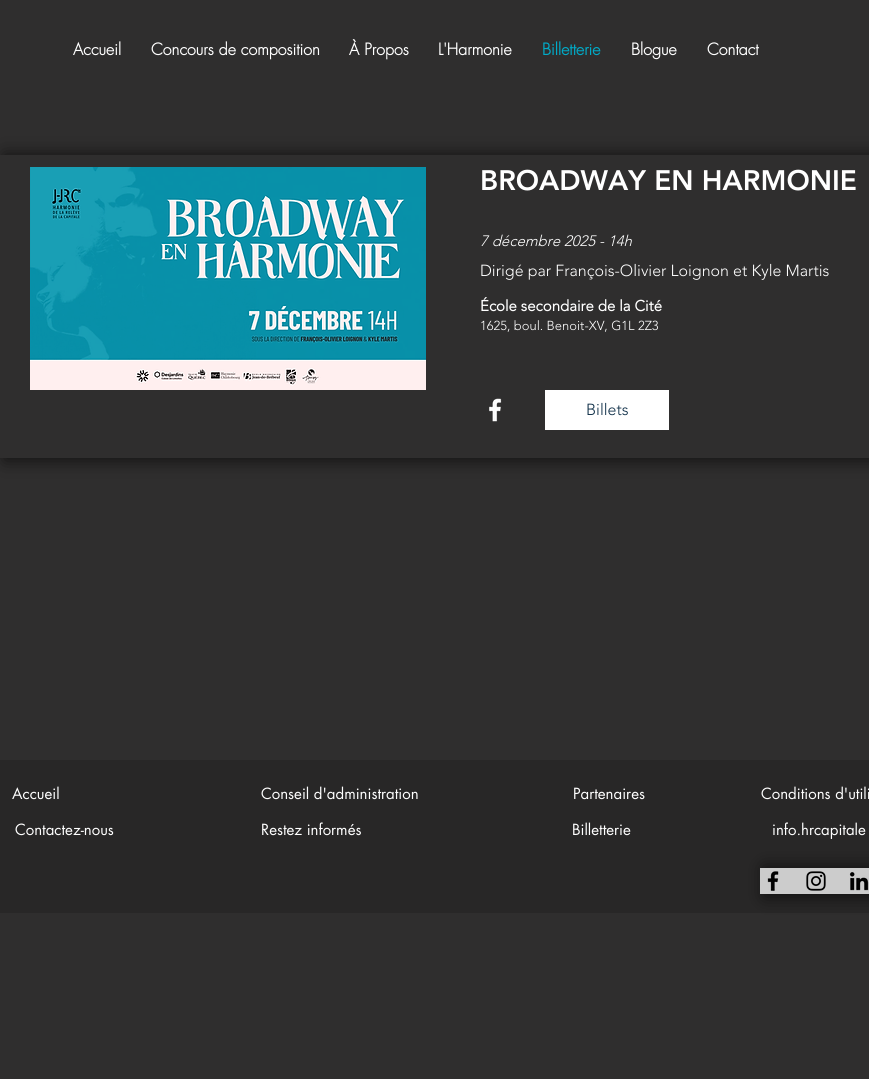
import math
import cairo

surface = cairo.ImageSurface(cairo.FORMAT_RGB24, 869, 1079)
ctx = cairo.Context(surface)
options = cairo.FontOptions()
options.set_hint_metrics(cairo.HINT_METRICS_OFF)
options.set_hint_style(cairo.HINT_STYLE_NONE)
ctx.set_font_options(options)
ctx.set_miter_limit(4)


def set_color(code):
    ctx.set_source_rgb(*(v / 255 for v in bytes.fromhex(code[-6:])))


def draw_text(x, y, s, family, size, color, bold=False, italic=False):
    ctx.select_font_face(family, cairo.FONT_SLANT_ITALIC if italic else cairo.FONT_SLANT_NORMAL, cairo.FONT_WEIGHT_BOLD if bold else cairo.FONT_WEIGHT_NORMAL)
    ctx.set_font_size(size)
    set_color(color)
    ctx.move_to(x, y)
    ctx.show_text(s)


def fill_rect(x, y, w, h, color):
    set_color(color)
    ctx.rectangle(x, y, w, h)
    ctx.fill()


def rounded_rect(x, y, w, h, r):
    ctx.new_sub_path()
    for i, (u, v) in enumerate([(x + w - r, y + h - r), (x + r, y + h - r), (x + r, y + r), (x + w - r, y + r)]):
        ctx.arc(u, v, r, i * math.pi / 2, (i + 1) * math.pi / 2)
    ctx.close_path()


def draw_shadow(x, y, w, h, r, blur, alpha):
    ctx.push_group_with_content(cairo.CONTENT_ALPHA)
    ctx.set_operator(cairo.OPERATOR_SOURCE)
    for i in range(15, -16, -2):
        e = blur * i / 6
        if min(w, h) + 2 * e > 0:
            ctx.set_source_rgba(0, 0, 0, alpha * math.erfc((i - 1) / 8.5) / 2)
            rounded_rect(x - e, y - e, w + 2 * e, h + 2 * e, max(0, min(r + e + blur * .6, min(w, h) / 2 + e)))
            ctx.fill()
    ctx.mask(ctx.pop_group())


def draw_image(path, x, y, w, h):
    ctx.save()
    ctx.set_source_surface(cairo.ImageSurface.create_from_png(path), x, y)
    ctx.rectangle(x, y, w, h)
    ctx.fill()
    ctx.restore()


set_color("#2f2e2e")
ctx.paint()
draw_text(73, 55, "Accueil", "futura", 16, "#ffffff", bold=True)
draw_text(151, 55, "Concours de composition", "futura", 16, "#ffffff", bold=True)
draw_text(349, 55, "À Propos", "futura", 16, "#ffffff", bold=True)
draw_text(438, 55, "L'Harmonie", "futura", 16, "#ffffff", bold=True)
draw_text(542, 55, "Billetterie", "futura", 16, "#00abc8", bold=True)
draw_text(631, 55, "Blogue", "futura", 16, "#ffffff", bold=True)
draw_text(707, 55, "Contact", "futura", 16, "#ffffff", bold=True)
ctx.save()
ctx.set_fill_rule(cairo.FILL_RULE_EVEN_ODD)
ctx.new_path()
ctx.move_to(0, 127)
ctx.line_to(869, 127)
ctx.line_to(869, 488)
ctx.line_to(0, 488)
ctx.close_path()
ctx.move_to(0, 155)
ctx.line_to(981, 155)
ctx.line_to(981, 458)
ctx.line_to(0, 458)
ctx.close_path()
ctx.clip()
set_color("#000000")
draw_shadow(4, 154, 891, 307, 0, 8.5, 0.6)
ctx.restore()
draw_image("assets/img1.png", 30, 167, 396, 223)
draw_text(480, 190, "BROADWAY EN HARMONIE", "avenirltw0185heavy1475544 Black", 28, "#ffffff")
draw_text(480, 246, "7 décembre 2025 - 14h", "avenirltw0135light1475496 Light", 15, "#ffffff", italic=True)
draw_text(480, 276, "Dirigé par François-Olivier Loignon et Kyle Martis", "avenirltw0135light1475496 Light", 16, "#ffffff")
draw_text(480, 311, "École secondaire de la Cité", "avenirltw0135light1475496", 15, "#ffffff", bold=True)
draw_text(480, 330, "1625, boul. Benoit-XV, G1L 2Z3", "avenirltw0135light1475496 Light", 13, "#ffffff")
draw_image("assets/img2.png", 489, 398, 13, 24)
fill_rect(545, 390, 124, 40, "#ffffff")
draw_text(586, 415, "Billets", "avenirltw0135light1475496 Light", 16, "#0e2e47")
fill_rect(0, 760, 869, 153, "#282727")
draw_text(12, 799, "Accueil", "futura", 15, "#ffffff")
draw_text(261, 799, "Conseil d'administration", "futura", 15, "#ffffff")
draw_text(573, 799, "Partenaires", "futura", 15, "#ffffff")
draw_text(761, 799, "Conditions d'utili", "futura", 15, "#ffffff")
draw_text(15, 835, "Contactez-nous", "futura", 15, "#ffffff")
draw_text(261, 835, "Restez informés", "futura", 15, "#ffffff")
draw_text(572, 835, "Billetterie", "futura", 15, "#ffffff")
draw_text(772, 835, "info.hrcapitale", "futura", 15, "#ffffff")
set_color("#000000")
draw_shadow(764, 867, 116, 30, 0, 8.5, 0.6)
fill_rect(760, 868, 109, 26, "#cccccc")
draw_image("assets/img3.png", 767, 871, 12, 20)
draw_image("assets/img4.png", 806, 871, 20, 20)
draw_image("assets/img5.png", 849, 872, 20, 19)
surface.write_to_png("output.png")
